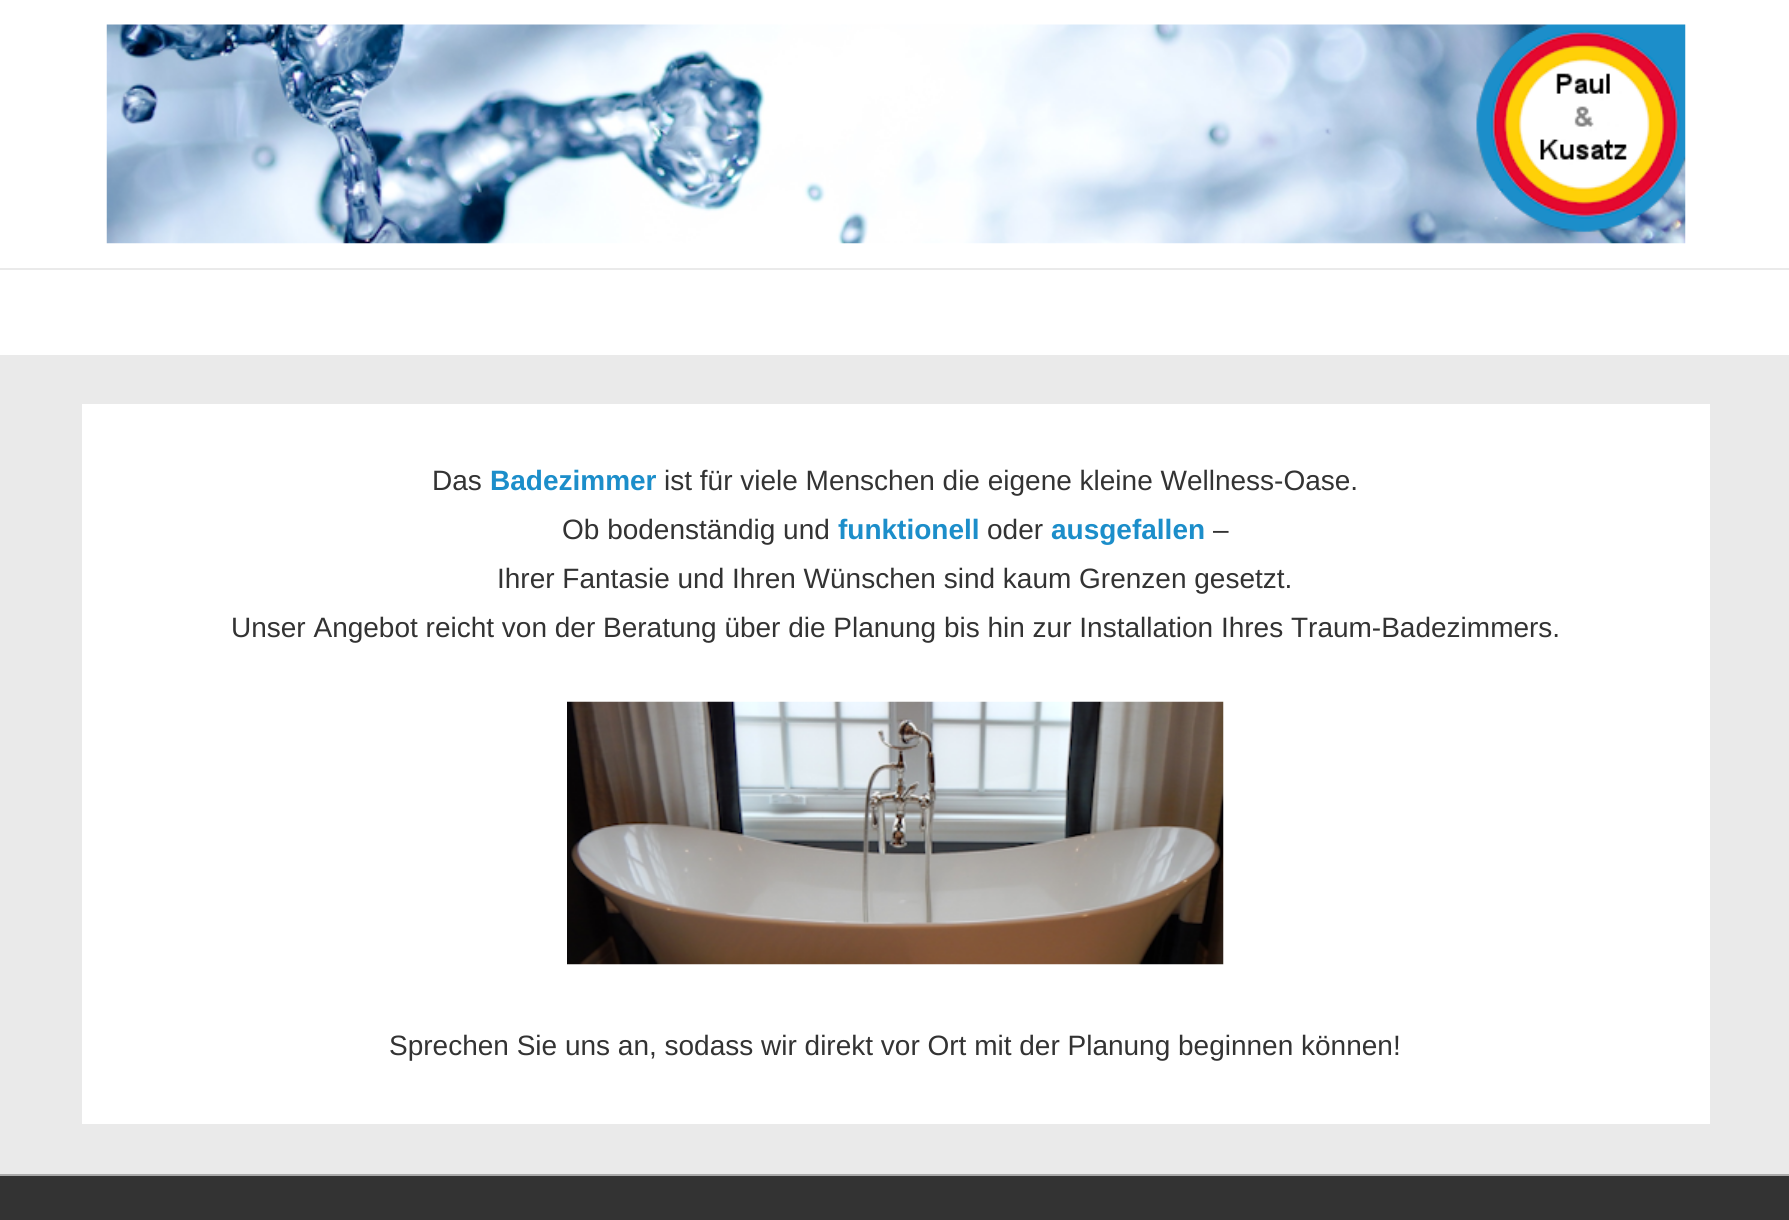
import math
import cairo

surface = cairo.ImageSurface(cairo.FORMAT_RGB24, 1789, 1220)
ctx = cairo.Context(surface)
options = cairo.FontOptions()
options.set_hint_metrics(cairo.HINT_METRICS_OFF)
options.set_hint_style(cairo.HINT_STYLE_NONE)
ctx.set_font_options(options)
ctx.set_miter_limit(4)


def set_color(code):
    ctx.set_source_rgb(*(v / 255 for v in bytes.fromhex(code[-6:])))


def draw_text(x, y, s, family, size, color, bold=False, italic=False):
    ctx.select_font_face(family, cairo.FONT_SLANT_ITALIC if italic else cairo.FONT_SLANT_NORMAL, cairo.FONT_WEIGHT_BOLD if bold else cairo.FONT_WEIGHT_NORMAL)
    ctx.set_font_size(size)
    set_color(color)
    ctx.move_to(x, y)
    ctx.show_text(s)


def fill_rect(x, y, w, h, color):
    set_color(color)
    ctx.rectangle(x, y, w, h)
    ctx.fill()


def draw_image(path, x, y, w, h):
    ctx.save()
    ctx.set_source_surface(cairo.ImageSurface.create_from_png(path), x, y)
    ctx.rectangle(x, y, w, h)
    ctx.fill()
    ctx.restore()


set_color("#eaeaea")
ctx.paint()
fill_rect(0, 0, 1789, 268, "#ffffff")
draw_image("assets/img1.png", 106, 24, 1580, 220)
fill_rect(0, 270, 1789, 85, "#ffffff")
fill_rect(82, 404, 1628, 720, "#ffffff")
draw_text(432, 490, "Das", "Liberation Sans", 28, "#333333")
draw_text(490, 490, "Badezimmer", "Liberation Sans", 28, "#1c8eca", bold=True)
draw_text(664, 490, "ist für viele Menschen die eigene kleine Wellness-Oase.", "Liberation Sans", 28, "#333333")
draw_text(562, 539, "Ob bodenständig und", "Liberation Sans", 28, "#333333")
draw_text(838, 539, "funktionell", "Liberation Sans", 28, "#1c8eca", bold=True)
draw_text(987, 539, "oder", "Liberation Sans", 28, "#333333")
draw_text(1051, 539, "ausgefallen", "Liberation Sans", 28, "#1c8eca", bold=True)
draw_text(1213, 539, "–", "Liberation Sans", 28, "#333333")
draw_text(497, 588, "Ihrer Fantasie und Ihren Wünschen sind kaum Grenzen gesetzt.", "Liberation Sans", 28, "#333333")
draw_text(231, 637, "Unser Angebot reicht von der Beratung über die Planung bis hin zur Installation Ihres Traum-Badezimmers.", "Liberation Sans", 28, "#333333")
draw_image("assets/img2.png", 567, 701, 657, 264)
draw_text(389, 1055, "Sprechen Sie uns an, sodass wir direkt vor Ort mit der Planung beginnen können!", "Liberation Sans", 28, "#333333")
fill_rect(0, 1176, 1789, 44, "#333333")
fill_rect(0, 1174, 1789, 2, "#aaaaaa")
surface.write_to_png("output.png")
